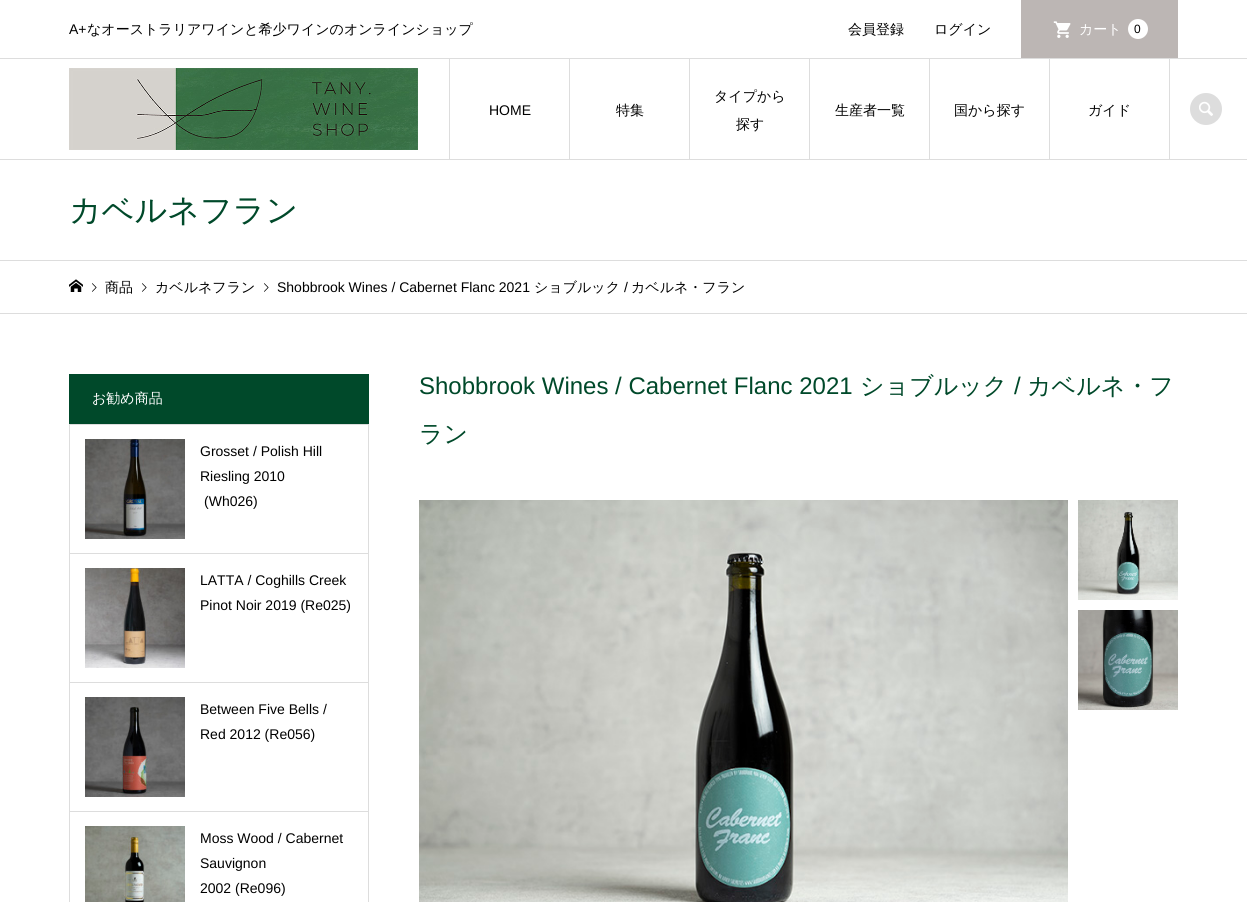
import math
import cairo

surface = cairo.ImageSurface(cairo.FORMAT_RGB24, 1247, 902)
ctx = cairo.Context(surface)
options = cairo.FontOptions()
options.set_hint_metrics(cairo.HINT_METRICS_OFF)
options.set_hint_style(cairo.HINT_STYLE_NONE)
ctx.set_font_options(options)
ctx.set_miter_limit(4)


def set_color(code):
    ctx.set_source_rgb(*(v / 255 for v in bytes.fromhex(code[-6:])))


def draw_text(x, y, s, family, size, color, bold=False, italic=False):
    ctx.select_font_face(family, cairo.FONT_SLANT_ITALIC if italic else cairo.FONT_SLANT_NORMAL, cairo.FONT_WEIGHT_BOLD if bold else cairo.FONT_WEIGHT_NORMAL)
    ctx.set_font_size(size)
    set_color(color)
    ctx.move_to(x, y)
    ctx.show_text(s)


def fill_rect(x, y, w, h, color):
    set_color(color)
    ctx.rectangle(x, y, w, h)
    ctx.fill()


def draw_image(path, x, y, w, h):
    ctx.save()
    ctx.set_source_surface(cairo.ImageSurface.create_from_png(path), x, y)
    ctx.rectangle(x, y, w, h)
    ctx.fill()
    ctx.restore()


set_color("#ffffff")
ctx.paint()
fill_rect(0, 58, 1247, 1, "#dddddd")
draw_text(69, 34, "A+", "Liberation Sans", 14, "#000000")
draw_text(87, 34, "なオーストラリアワインと希少ワインのオンラインショップ", "WenQuanYi Zen Hei Medium", 14, "#000000")
draw_text(848, 34, "会員登録", "WenQuanYi Zen Hei Medium", 14, "#000000")
draw_text(934, 34, "ログイン", "WenQuanYi Zen Hei Medium", 14, "#000000")
fill_rect(1021, 0, 157, 58, "#bcb6b4")
draw_image("assets/img1.png", 1053, 21, 18, 17)
draw_text(1079, 34, "カート", "WenQuanYi Zen Hei Medium", 14, "#ffffff")
ctx.new_path()
ctx.arc(1138, 29, 10, 0, 2 * math.pi)
ctx.fill()
draw_text(1134, 33, "0", "Liberation Sans", 12, "#000000")
fill_rect(0, 159, 1247, 1, "#dddddd")
draw_image("assets/img2.png", 69, 68, 349, 82)
fill_rect(449, 59, 1, 100, "#dddddd")
fill_rect(569, 59, 1, 101, "#dddddd")
draw_text(489, 115, "HOME", "Liberation Sans", 14, "#000000")
fill_rect(689, 59, 1, 101, "#dddddd")
draw_text(616, 115, "特集", "WenQuanYi Zen Hei Medium", 14, "#000000")
fill_rect(809, 59, 1, 101, "#dddddd")
draw_text(714, 101, "タイプから", "WenQuanYi Zen Hei Medium", 14, "#000000")
draw_text(736, 129, "探す", "WenQuanYi Zen Hei Medium", 14, "#000000")
fill_rect(929, 59, 1, 101, "#dddddd")
draw_text(835, 115, "生産者一覧", "WenQuanYi Zen Hei Medium", 14, "#000000")
fill_rect(1049, 59, 1, 101, "#dddddd")
draw_text(954, 115, "国から探す", "WenQuanYi Zen Hei Medium", 14, "#000000")
fill_rect(1169, 59, 1, 101, "#dddddd")
draw_text(1088, 115, "ガイド", "WenQuanYi Zen Hei Medium", 14, "#000000")
set_color("#dddddd")
ctx.new_path()
ctx.arc(1206, 109, 16, 0, 2 * math.pi)
ctx.fill()
draw_image("assets/img3.png", 1199, 101, 14, 15)
fill_rect(0, 260, 1247, 1, "#dddddd")
draw_text(69, 221, "カベルネフラン", "WenQuanYi Zen Hei Medium", 32, "#00492a")
fill_rect(0, 313, 1247, 1, "#dddddd")
draw_image("assets/img4.png", 69, 279, 14, 13)
draw_image("assets/img5.png", 92, 283, 5, 9)
draw_text(105, 292, "商品", "WenQuanYi Zen Hei Medium", 14, "#000000")
draw_image("assets/img5.png", 142, 283, 5, 9)
draw_text(155, 292, "カベルネフラン", "WenQuanYi Zen Hei Medium", 14, "#000000")
draw_image("assets/img5.png", 264, 283, 5, 9)
draw_text(277, 292, "Shobbrook Wines / Cabernet Flanc 2021", "Liberation Sans", 14, "#000000")
draw_text(534, 292, "ショブルック", "WenQuanYi Zen Hei Medium", 14, "#000000")
draw_text(624, 292, "/", "Liberation Sans", 14, "#000000")
draw_text(631, 292, "カベルネ・フラン", "WenQuanYi Zen Hei Medium", 14, "#000000")
fill_rect(69, 374, 300, 50, "#00492a")
draw_text(92, 403, "お勧め商品", "WenQuanYi Zen Hei Medium", 14, "#ffffff")
fill_rect(368, 424, 1, 478, "#dddddd")
fill_rect(69, 424, 1, 478, "#dddddd")
fill_rect(70, 424, 298, 1, "#dddddd")
draw_image("assets/img6.png", 85, 439, 100, 100)
draw_text(200, 456, "Grosset / Polish Hill", "Liberation Sans", 14, "#000000")
draw_text(200, 481, "Riesling 2010", "Liberation Sans", 14, "#000000")
draw_text(204, 506, "(Wh026)", "Liberation Sans", 14, "#000000")
fill_rect(70, 553, 298, 1, "#dddddd")
draw_image("assets/img7.png", 85, 568, 100, 100)
draw_text(200, 585, "LATTA / Coghills Creek", "Liberation Sans", 14, "#000000")
draw_text(200, 610, "Pinot Noir 2019 (Re025)", "Liberation Sans", 14, "#000000")
fill_rect(70, 682, 298, 1, "#dddddd")
draw_image("assets/img8.png", 85, 697, 100, 100)
draw_text(200, 714, "Between Five Bells /", "Liberation Sans", 14, "#000000")
draw_text(200, 739, "Red 2012 (Re056)", "Liberation Sans", 14, "#000000")
fill_rect(70, 811, 298, 1, "#dddddd")
draw_image("assets/img9.png", 85, 826, 100, 76)
draw_text(200, 843, "Moss Wood / Cabernet", "Liberation Sans", 14, "#000000")
draw_text(200, 868, "Sauvignon", "Liberation Sans", 14, "#000000")
draw_text(200, 893, "2002 (Re096)", "Liberation Sans", 14, "#000000")
draw_text(419, 394, "Shobbrook Wines / Cabernet Flanc 2021", "Liberation Sans", 24, "#00492a")
draw_text(860, 394, "ショブルック", "WenQuanYi Zen Hei Medium", 24, "#00492a")
draw_text(1014, 394, "/", "Liberation Sans", 24, "#00492a")
draw_text(1027, 394, "カベルネ・フ", "WenQuanYi Zen Hei Medium", 24, "#00492a")
draw_text(419, 442, "ラン", "WenQuanYi Zen Hei Medium", 24, "#00492a")
draw_image("assets/img10.png", 419, 500, 649, 402)
draw_image("assets/img11.png", 1078, 500, 100, 100)
draw_image("assets/img12.png", 1078, 610, 100, 100)
surface.write_to_png("output.png")
